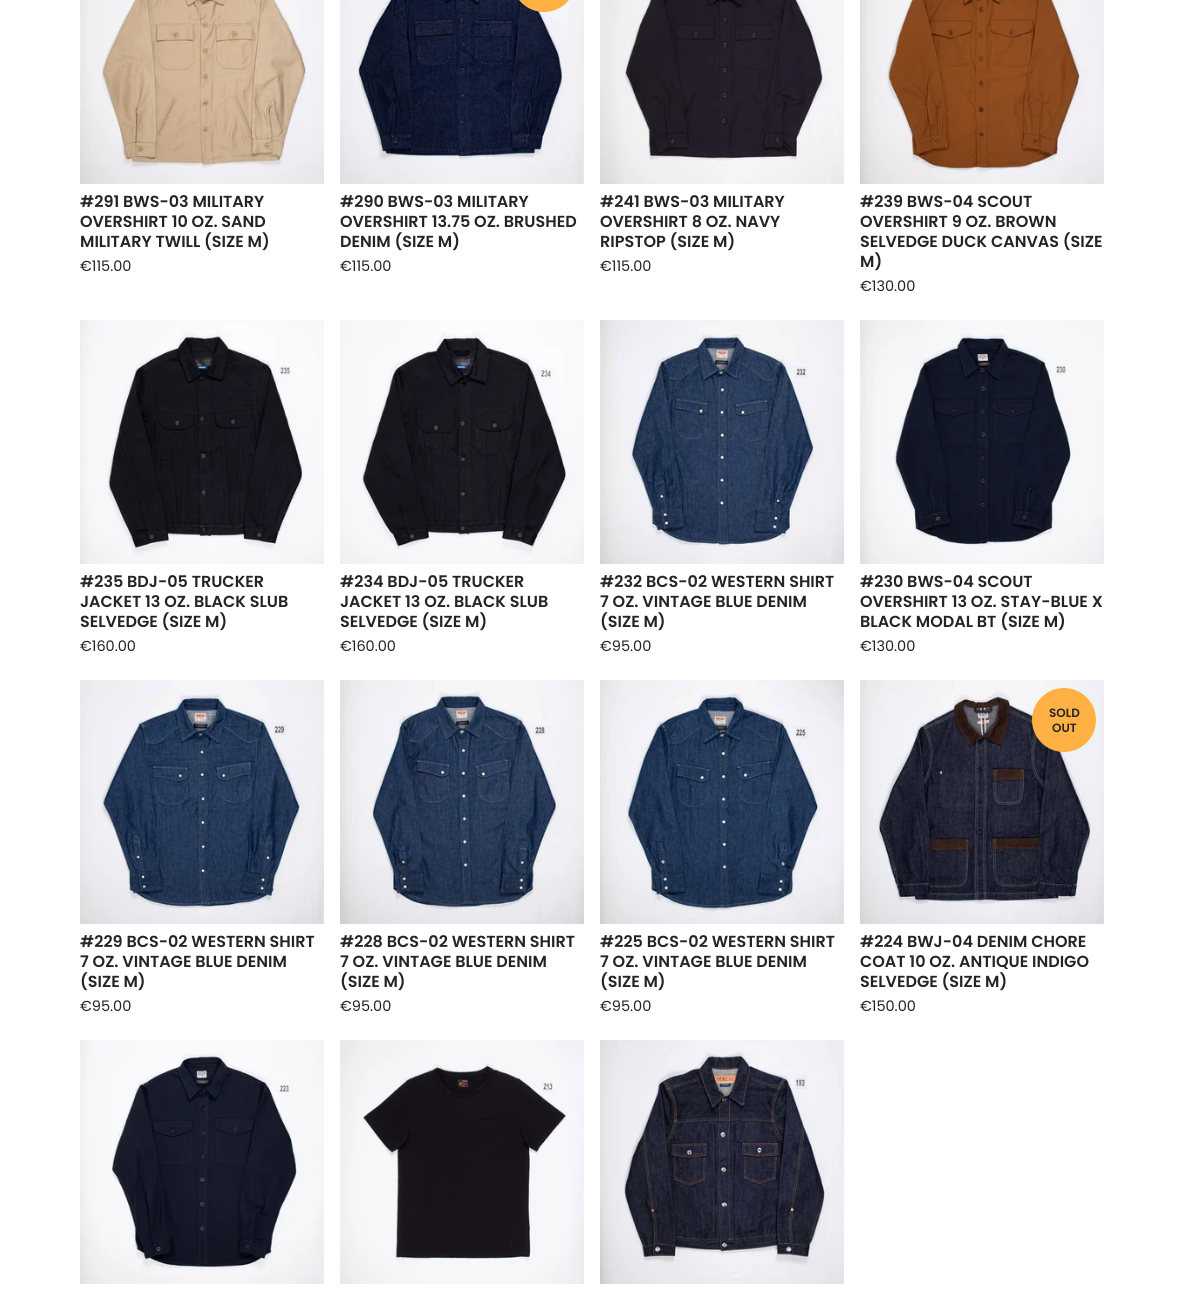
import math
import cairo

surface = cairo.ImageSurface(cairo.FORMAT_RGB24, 1184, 1294)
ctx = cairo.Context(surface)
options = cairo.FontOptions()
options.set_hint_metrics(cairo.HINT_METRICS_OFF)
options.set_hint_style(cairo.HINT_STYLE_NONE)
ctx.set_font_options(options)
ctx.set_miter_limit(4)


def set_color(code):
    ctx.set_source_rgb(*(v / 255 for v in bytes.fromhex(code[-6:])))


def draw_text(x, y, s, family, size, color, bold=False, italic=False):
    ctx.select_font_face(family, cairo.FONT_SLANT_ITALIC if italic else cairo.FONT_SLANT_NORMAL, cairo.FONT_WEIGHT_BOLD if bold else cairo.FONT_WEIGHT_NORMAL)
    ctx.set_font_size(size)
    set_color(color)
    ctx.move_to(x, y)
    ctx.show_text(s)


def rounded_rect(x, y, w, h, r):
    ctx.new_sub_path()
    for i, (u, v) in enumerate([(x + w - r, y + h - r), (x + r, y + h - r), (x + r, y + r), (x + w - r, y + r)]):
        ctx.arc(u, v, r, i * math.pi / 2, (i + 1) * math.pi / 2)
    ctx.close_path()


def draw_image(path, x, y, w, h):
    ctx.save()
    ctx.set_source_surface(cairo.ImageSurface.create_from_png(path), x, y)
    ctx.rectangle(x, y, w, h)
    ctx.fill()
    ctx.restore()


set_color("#ffffff")
ctx.paint()
draw_image("assets/img1.png", 80, 0, 244, 184)
draw_text(80, 207, "#291 BWS-03 MILITARY", "Poppins SemiBold", 16, "#242424")
draw_text(80, 227, "OVERSHIRT 10 OZ. SAND", "Poppins SemiBold", 16, "#242424")
draw_text(80, 247, "MILITARY TWILL (SIZE M)", "Poppins SemiBold", 16, "#242424")
draw_text(80, 271, "€115.00", "Poppins", 14.5, "#242424")
draw_image("assets/img2.png", 340, 0, 244, 184)
set_color("#ffb144")
rounded_rect(512, -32, 64, 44, 32)
ctx.fill()
draw_text(340, 207, "#290 BWS-03 MILITARY", "Poppins SemiBold", 16, "#242424")
draw_text(340, 227, "OVERSHIRT 13.75 OZ. BRUSHED", "Poppins SemiBold", 16, "#242424")
draw_text(340, 247, "DENIM (SIZE M)", "Poppins SemiBold", 16, "#242424")
draw_text(340, 271, "€115.00", "Poppins", 14.5, "#242424")
draw_image("assets/img3.png", 600, 0, 244, 184)
draw_text(600, 207, "#241 BWS-03 MILITARY", "Poppins SemiBold", 16, "#242424")
draw_text(600, 227, "OVERSHIRT 8 OZ. NAVY", "Poppins SemiBold", 16, "#242424")
draw_text(600, 247, "RIPSTOP (SIZE M)", "Poppins SemiBold", 16, "#242424")
draw_text(600, 271, "€115.00", "Poppins", 14.5, "#242424")
draw_image("assets/img4.png", 860, 0, 244, 184)
draw_text(860, 207, "#239 BWS-04 SCOUT", "Poppins SemiBold", 16, "#242424")
draw_text(860, 227, "OVERSHIRT 9 OZ. BROWN", "Poppins SemiBold", 16, "#242424")
draw_text(860, 247, "SELVEDGE DUCK CANVAS (SIZE", "Poppins SemiBold", 16, "#242424")
draw_text(860, 267, "M)", "Poppins SemiBold", 16, "#242424")
draw_text(860, 291, "€130.00", "Poppins", 14.5, "#242424")
draw_image("assets/img5.png", 80, 320, 244, 244)
draw_text(80, 587, "#235 BDJ-05 TRUCKER", "Poppins SemiBold", 16, "#242424")
draw_text(80, 607, "JACKET 13 OZ. BLACK SLUB", "Poppins SemiBold", 16, "#242424")
draw_text(80, 627, "SELVEDGE (SIZE M)", "Poppins SemiBold", 16, "#242424")
draw_text(80, 651, "€160.00", "Poppins", 14.5, "#242424")
draw_image("assets/img6.png", 340, 320, 244, 244)
draw_text(340, 587, "#234 BDJ-05 TRUCKER", "Poppins SemiBold", 16, "#242424")
draw_text(340, 607, "JACKET 13 OZ. BLACK SLUB", "Poppins SemiBold", 16, "#242424")
draw_text(340, 627, "SELVEDGE (SIZE M)", "Poppins SemiBold", 16, "#242424")
draw_text(340, 651, "€160.00", "Poppins", 14.5, "#242424")
draw_image("assets/img7.png", 600, 320, 244, 244)
draw_text(600, 587, "#232 BCS-02 WESTERN SHIRT", "Poppins SemiBold", 16, "#242424")
draw_text(600, 607, "7 OZ. VINTAGE BLUE DENIM", "Poppins SemiBold", 16, "#242424")
draw_text(600, 627, "(SIZE M)", "Poppins SemiBold", 16, "#242424")
draw_text(600, 651, "€95.00", "Poppins", 14.5, "#242424")
draw_image("assets/img8.png", 860, 320, 244, 244)
draw_text(860, 587, "#230 BWS-04 SCOUT", "Poppins SemiBold", 16, "#242424")
draw_text(860, 607, "OVERSHIRT 13 OZ. STAY-BLUE X", "Poppins SemiBold", 16, "#242424")
draw_text(860, 627, "BLACK MODAL BT (SIZE M)", "Poppins SemiBold", 16, "#242424")
draw_text(860, 651, "€130.00", "Poppins", 14.5, "#242424")
draw_image("assets/img9.png", 80, 680, 244, 244)
draw_text(80, 947, "#229 BCS-02 WESTERN SHIRT", "Poppins SemiBold", 16, "#242424")
draw_text(80, 967, "7 OZ. VINTAGE BLUE DENIM", "Poppins SemiBold", 16, "#242424")
draw_text(80, 987, "(SIZE M)", "Poppins SemiBold", 16, "#242424")
draw_text(80, 1011, "€95.00", "Poppins", 14.5, "#242424")
draw_image("assets/img10.png", 340, 680, 244, 244)
draw_text(340, 947, "#228 BCS-02 WESTERN SHIRT", "Poppins SemiBold", 16, "#242424")
draw_text(340, 967, "7 OZ. VINTAGE BLUE DENIM", "Poppins SemiBold", 16, "#242424")
draw_text(340, 987, "(SIZE M)", "Poppins SemiBold", 16, "#242424")
draw_text(340, 1011, "€95.00", "Poppins", 14.5, "#242424")
draw_image("assets/img11.png", 600, 680, 244, 244)
draw_text(600, 947, "#225 BCS-02 WESTERN SHIRT", "Poppins SemiBold", 16, "#242424")
draw_text(600, 967, "7 OZ. VINTAGE BLUE DENIM", "Poppins SemiBold", 16, "#242424")
draw_text(600, 987, "(SIZE M)", "Poppins SemiBold", 16, "#242424")
draw_text(600, 1011, "€95.00", "Poppins", 14.5, "#242424")
draw_image("assets/img12.png", 860, 680, 244, 244)
set_color("#ffb144")
ctx.arc(1064, 720, 32, 0, 2 * math.pi)
ctx.fill()
draw_text(1049, 717, "SOLD", "Poppins SemiBold", 12, "#242424")
draw_text(1052, 732, "OUT", "Poppins SemiBold", 12, "#242424")
draw_text(860, 947, "#224 BWJ-04 DENIM CHORE", "Poppins SemiBold", 16, "#242424")
draw_text(860, 967, "COAT 10 OZ. ANTIQUE INDIGO", "Poppins SemiBold", 16, "#242424")
draw_text(860, 987, "SELVEDGE (SIZE M)", "Poppins SemiBold", 16, "#242424")
draw_text(860, 1011, "€150.00", "Poppins", 14.5, "#242424")
draw_image("assets/img13.png", 80, 1040, 244, 244)
draw_image("assets/img14.png", 340, 1040, 244, 244)
draw_image("assets/img15.png", 600, 1040, 244, 244)
surface.write_to_png("output.png")
